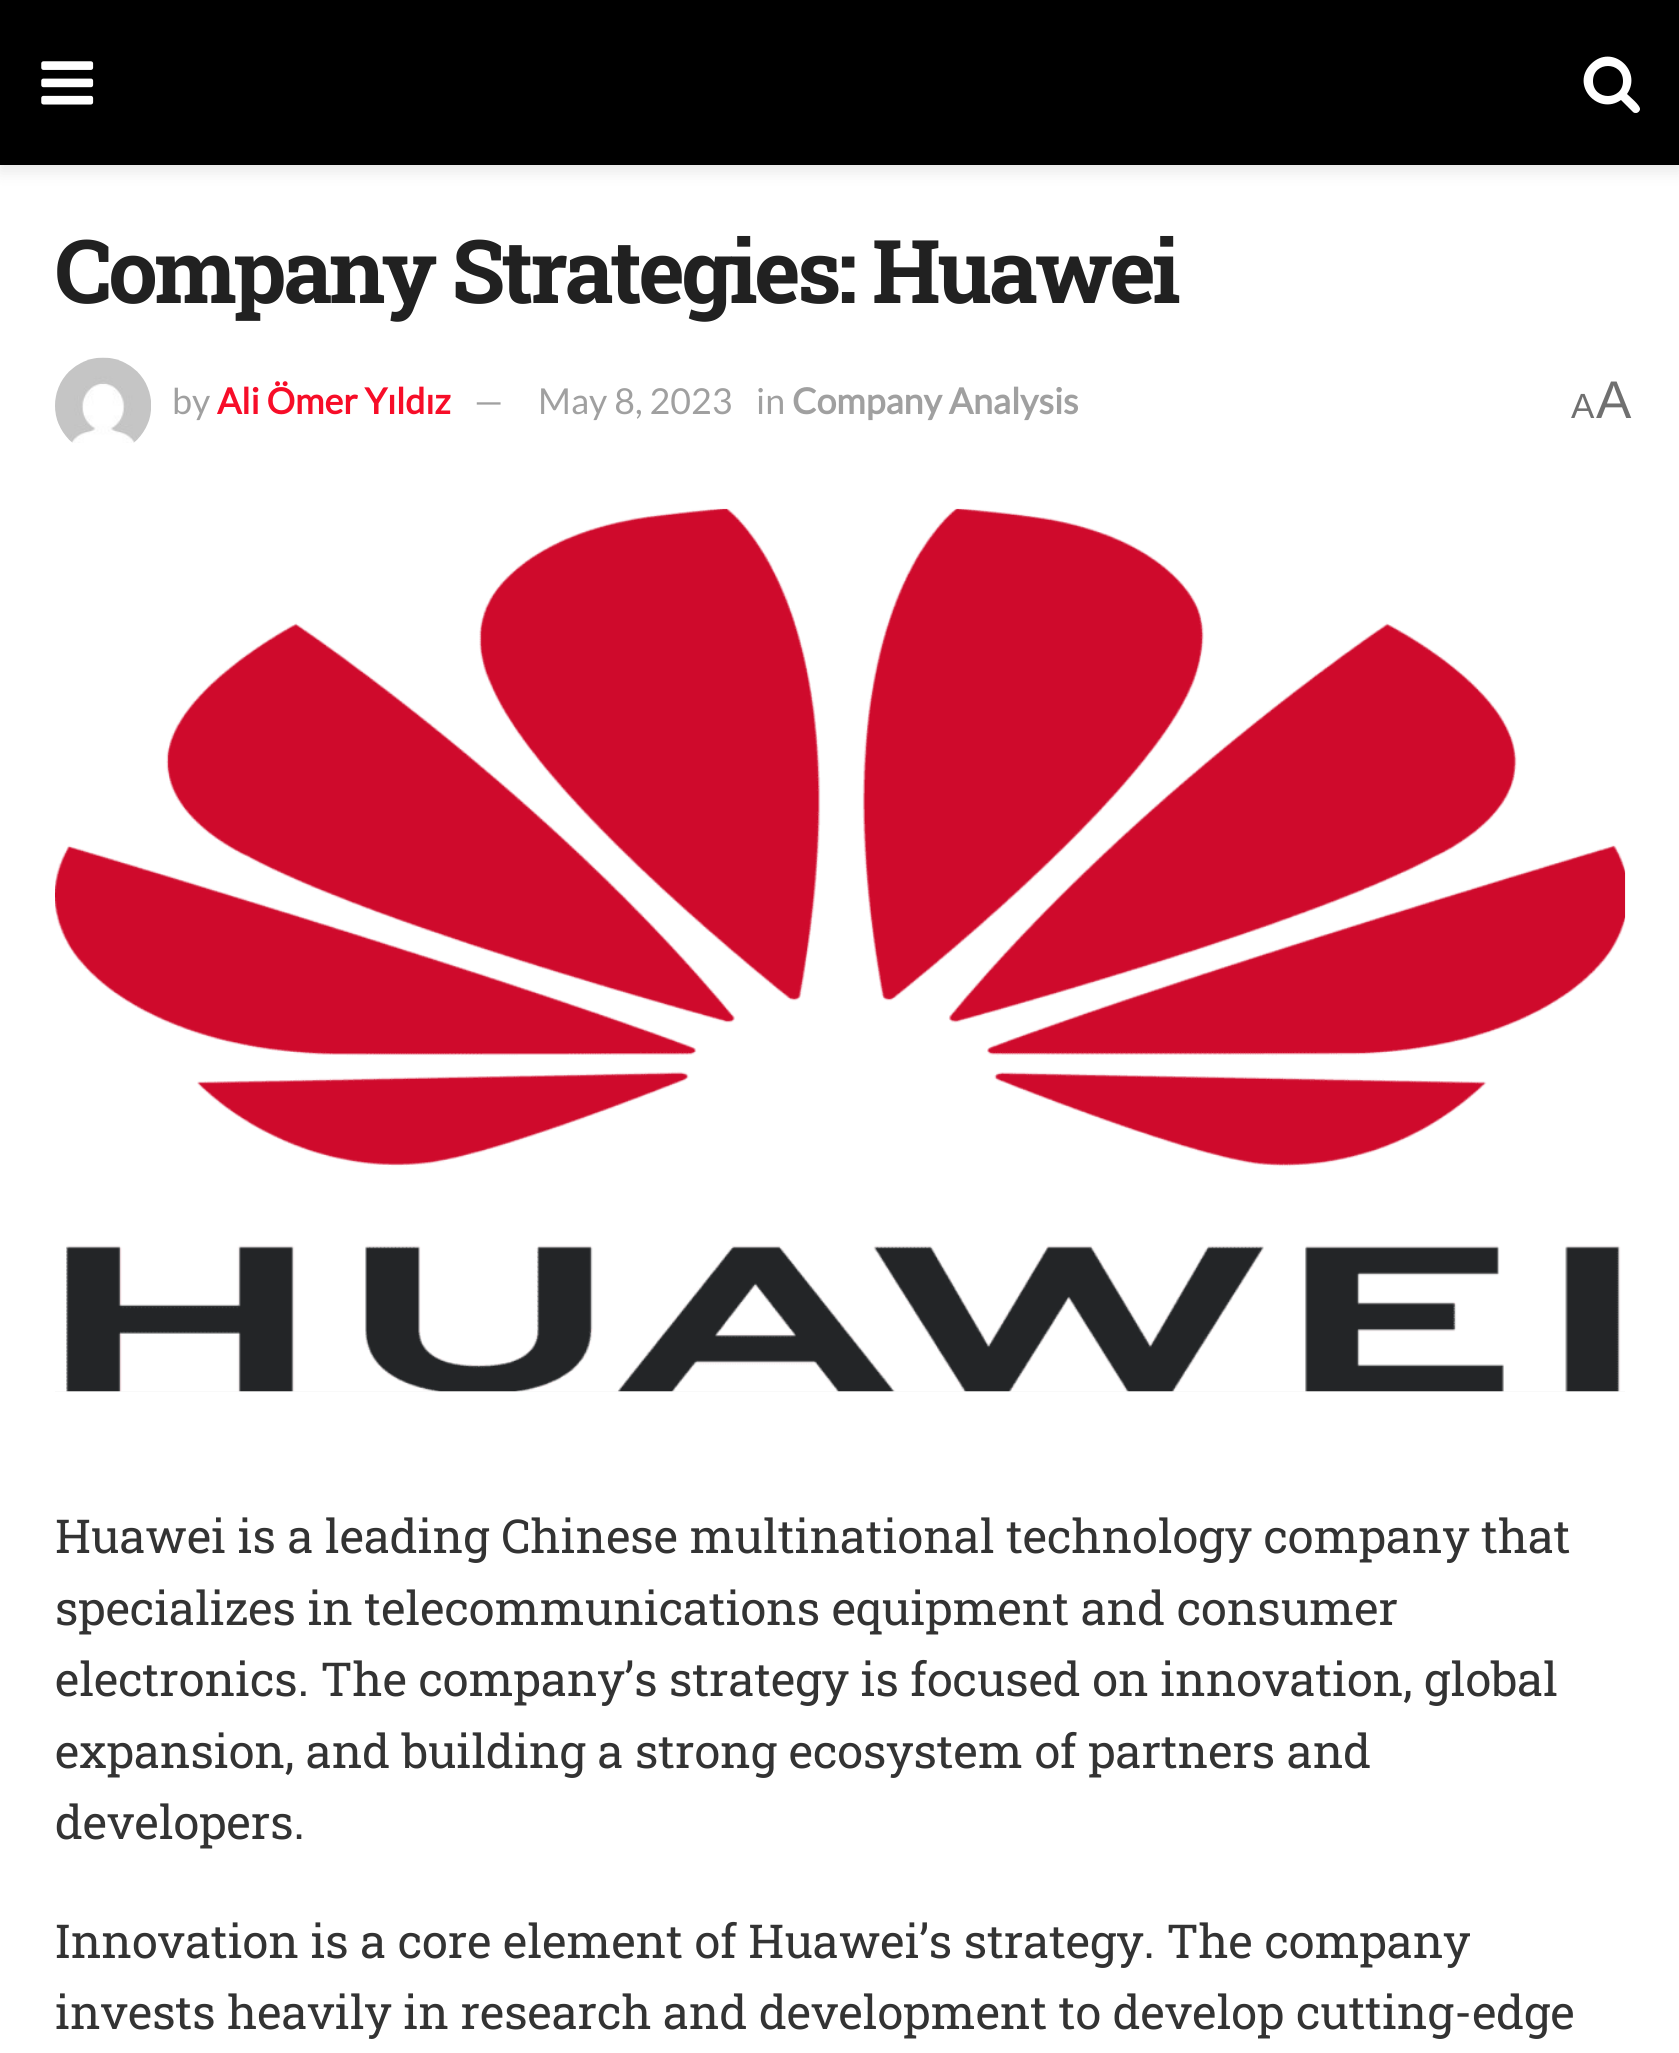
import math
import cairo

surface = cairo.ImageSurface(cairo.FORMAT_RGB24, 1679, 2053)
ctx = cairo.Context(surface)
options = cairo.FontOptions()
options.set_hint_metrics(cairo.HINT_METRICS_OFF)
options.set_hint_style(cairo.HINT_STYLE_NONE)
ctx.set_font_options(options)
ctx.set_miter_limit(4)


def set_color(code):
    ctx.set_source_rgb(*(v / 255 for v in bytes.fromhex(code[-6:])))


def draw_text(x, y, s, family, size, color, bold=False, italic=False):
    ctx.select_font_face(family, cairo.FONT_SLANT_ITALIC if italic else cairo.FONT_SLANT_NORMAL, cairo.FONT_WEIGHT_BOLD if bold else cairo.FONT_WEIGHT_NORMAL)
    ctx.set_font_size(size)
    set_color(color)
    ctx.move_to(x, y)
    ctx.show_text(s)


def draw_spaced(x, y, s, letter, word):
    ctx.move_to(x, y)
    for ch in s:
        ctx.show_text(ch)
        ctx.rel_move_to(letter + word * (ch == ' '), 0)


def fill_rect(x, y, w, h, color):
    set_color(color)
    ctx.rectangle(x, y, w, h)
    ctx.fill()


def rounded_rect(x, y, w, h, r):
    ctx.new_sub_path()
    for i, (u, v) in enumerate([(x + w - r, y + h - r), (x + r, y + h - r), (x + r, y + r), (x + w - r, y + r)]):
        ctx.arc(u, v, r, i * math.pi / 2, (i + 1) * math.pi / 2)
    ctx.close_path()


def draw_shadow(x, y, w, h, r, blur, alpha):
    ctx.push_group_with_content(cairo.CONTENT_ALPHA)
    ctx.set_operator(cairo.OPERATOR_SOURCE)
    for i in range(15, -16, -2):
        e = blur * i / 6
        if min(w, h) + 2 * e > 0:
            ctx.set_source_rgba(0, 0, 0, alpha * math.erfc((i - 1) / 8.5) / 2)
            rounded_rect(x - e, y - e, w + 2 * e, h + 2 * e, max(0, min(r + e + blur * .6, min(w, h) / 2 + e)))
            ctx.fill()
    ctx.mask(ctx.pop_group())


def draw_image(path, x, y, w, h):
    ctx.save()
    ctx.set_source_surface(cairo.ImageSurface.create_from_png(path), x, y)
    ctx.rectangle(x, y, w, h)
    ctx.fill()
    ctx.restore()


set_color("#ffffff")
ctx.paint()
set_color("#000000")
draw_shadow(0, 6, 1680, 165, 0, 8, 0.1)
fill_rect(0, 0, 1679, 165, "#000000")
draw_image("assets/img1.png", 41, 61, 53, 44)
set_color("#ffffff")
ctx.new_path()
ctx.move_to(1623, 81)
ctx.curve_to(1623, 101, 1593, 101, 1593, 81)
ctx.curve_to(1593, 61, 1623, 61, 1623, 81)
ctx.close_path()
ctx.move_to(1640, 109)
ctx.curve_to(1640, 105, 1630, 97, 1627, 94)
ctx.curve_to(1643, 71, 1612, 43, 1591, 64)
ctx.curve_to(1570, 85, 1598, 116, 1621, 100)
ctx.line_to(1633, 112)
ctx.curve_to(1634, 113, 1635, 113, 1636, 113)
ctx.curve_to(1638, 113, 1640, 111, 1640, 109)
ctx.close_path()
ctx.fill()
ctx.select_font_face("Roboto Slab", cairo.FONT_SLANT_NORMAL, cairo.FONT_WEIGHT_BOLD)
ctx.set_font_size(88)
set_color("#212121")
draw_spaced(55, 303, "Company Strategies: Huawei", -3.5, 0)
draw_image("assets/img2.png", 55, 357, 96, 86)
draw_text(172, 414, "by", "Lato", 35.75, "#a0a0a0")
draw_text(217, 414, "Ali Ömer Yıldız", "Lato", 35.75, "#f70d28", bold=True)
draw_text(474, 414, "—", "Lato", 35.75, "#a0a0a0")
draw_text(538, 414, "May 8, 2023", "Lato", 35.75, "#a0a0a0")
draw_text(756, 414, "in", "Lato", 35.75, "#a0a0a0")
draw_text(792, 414, "Company Analysis", "Lato", 35.75, "#a0a0a0", bold=True)
draw_text(1571, 418, "A", "Liberation Sans", 35, "#707070")
draw_text(1596, 418, "A", "Liberation Sans", 53, "#707070")
fill_rect(55, 1391, 1570, 1, "#f7f7f7")
draw_image("assets/img3.png", 55, 508, 1571, 884)
draw_text(55, 1553, "Huawei is a leading Chinese multinational technology company that", "Roboto Slab", 46.75, "#333333")
draw_text(55, 1625, "specializes in telecommunications equipment and consumer", "Roboto Slab", 46.75, "#333333")
draw_text(55, 1696, "electronics. The company’s strategy is focused on innovation, global", "Roboto Slab", 46.75, "#333333")
draw_text(55, 1768, "expansion, and building a strong ecosystem of partners and", "Roboto Slab", 46.75, "#333333")
draw_text(55, 1839, "developers.", "Roboto Slab", 46.75, "#333333")
draw_text(55, 1958, "Innovation is a core element of Huawei’s strategy. The company", "Roboto Slab", 46.75, "#333333")
draw_text(55, 2029, "invests heavily in research and development to develop cutting-edge", "Roboto Slab", 46.75, "#333333")
surface.write_to_png("output.png")
